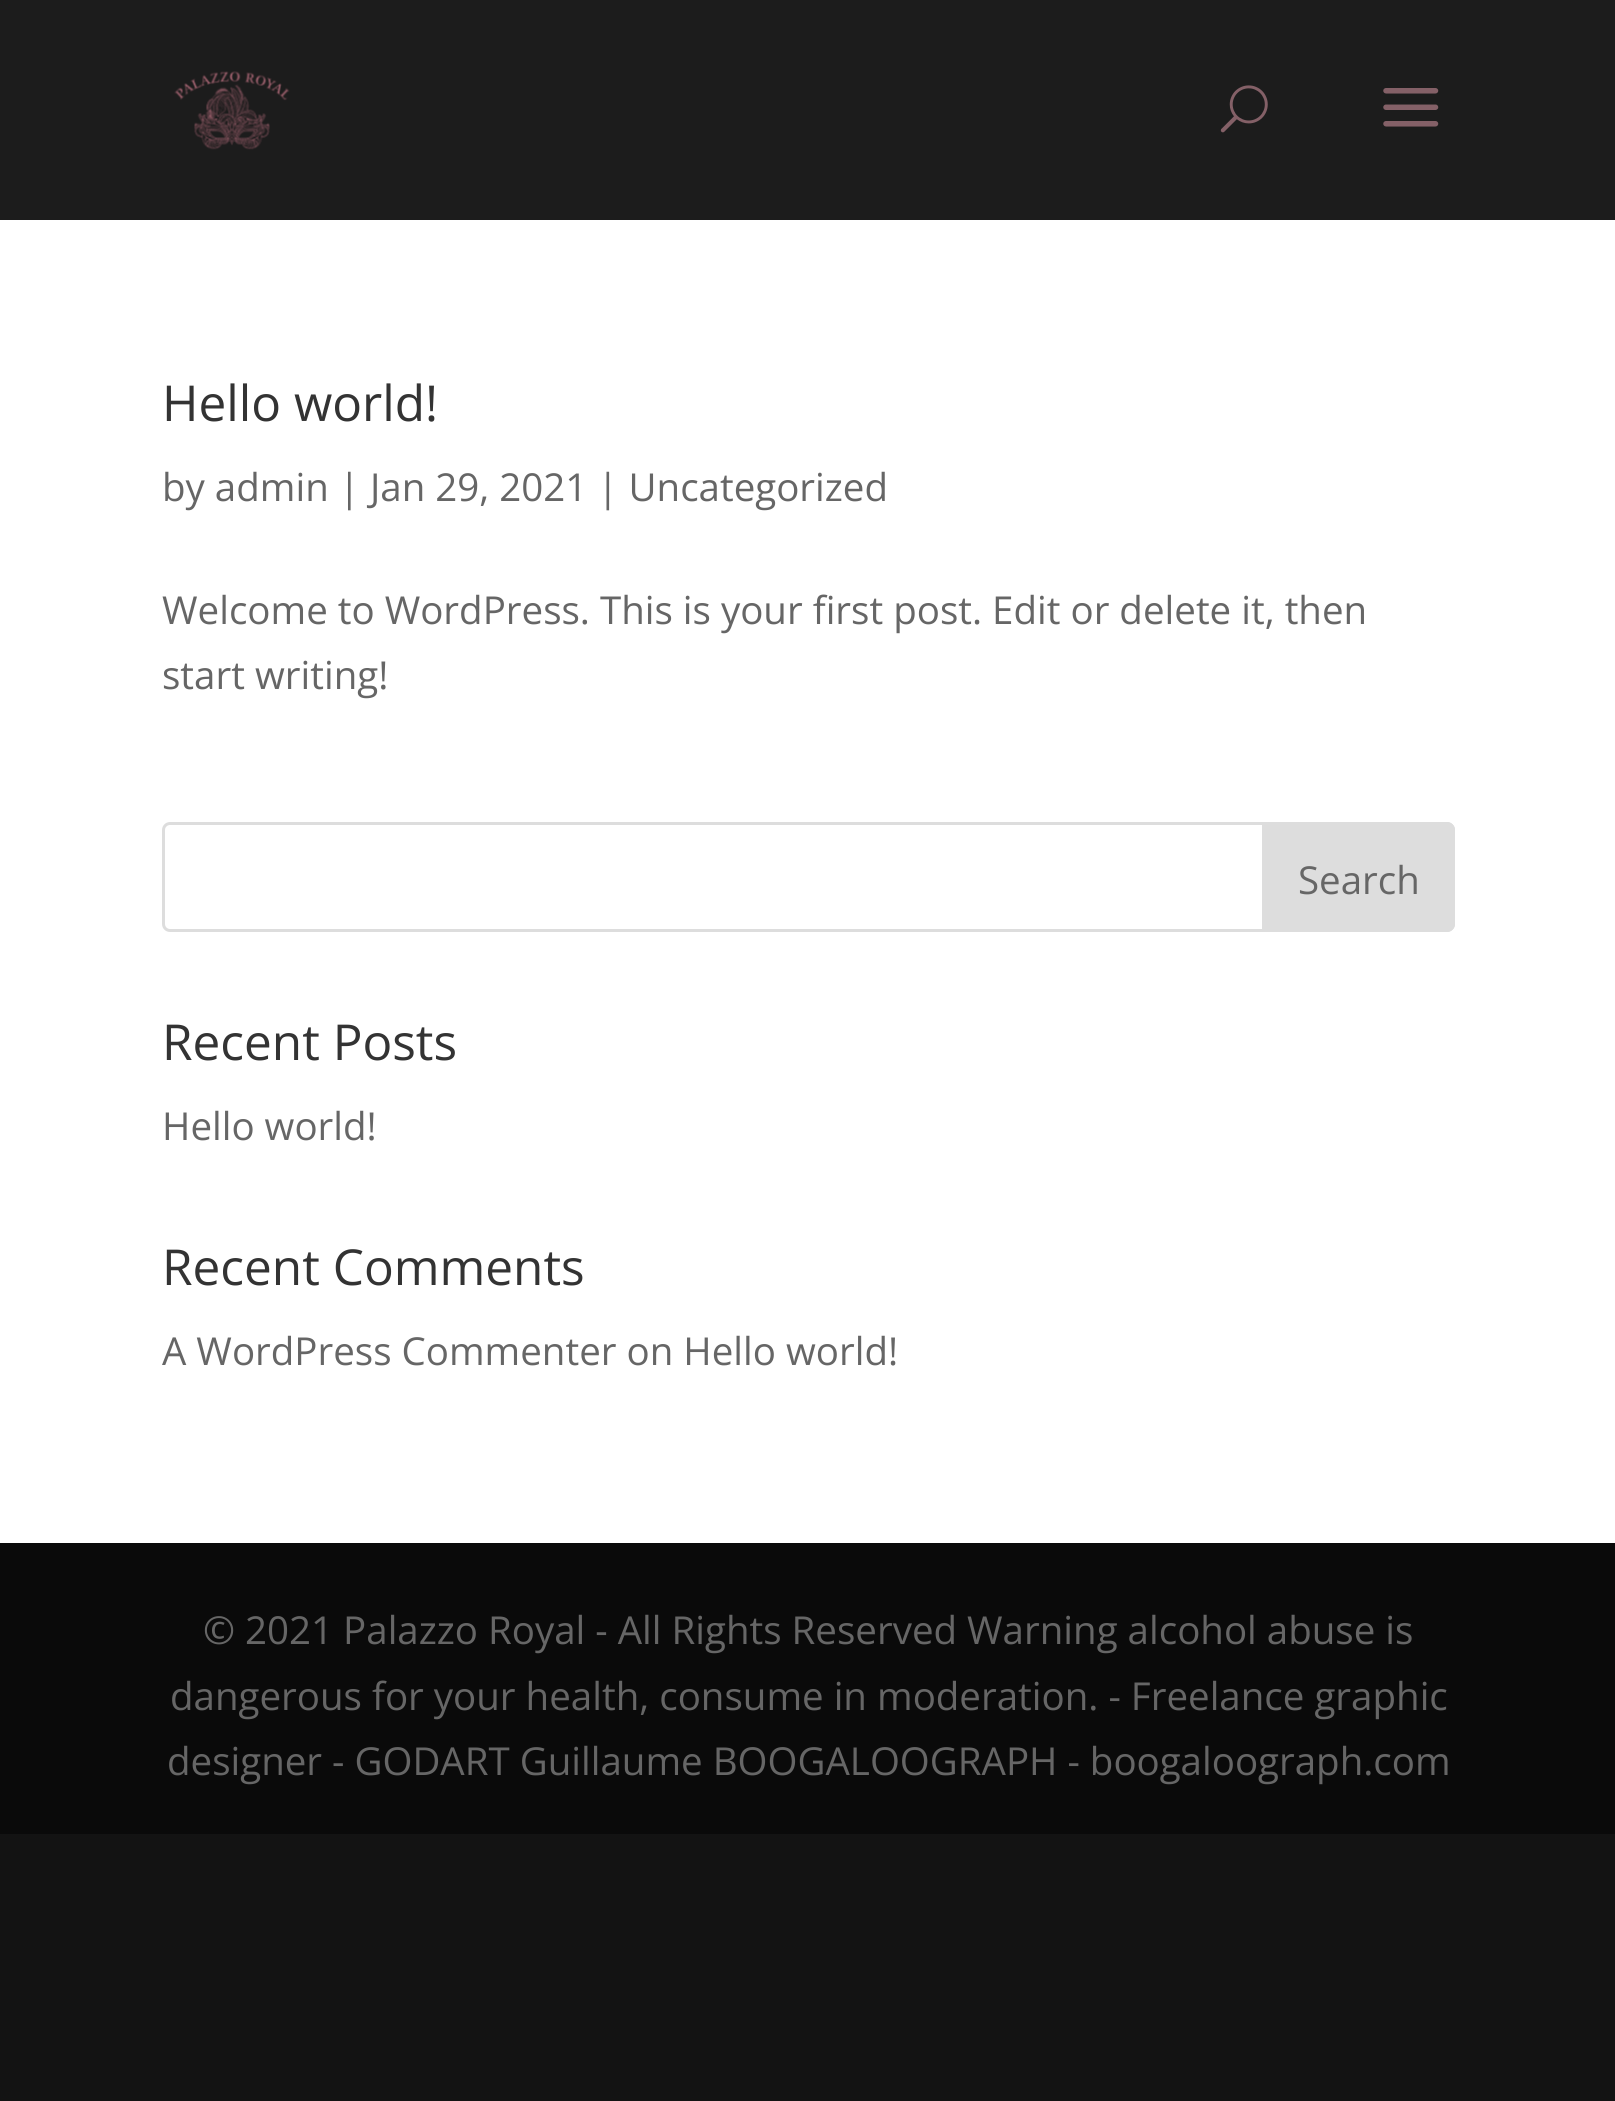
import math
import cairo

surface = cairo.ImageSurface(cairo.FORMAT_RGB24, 1615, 2101)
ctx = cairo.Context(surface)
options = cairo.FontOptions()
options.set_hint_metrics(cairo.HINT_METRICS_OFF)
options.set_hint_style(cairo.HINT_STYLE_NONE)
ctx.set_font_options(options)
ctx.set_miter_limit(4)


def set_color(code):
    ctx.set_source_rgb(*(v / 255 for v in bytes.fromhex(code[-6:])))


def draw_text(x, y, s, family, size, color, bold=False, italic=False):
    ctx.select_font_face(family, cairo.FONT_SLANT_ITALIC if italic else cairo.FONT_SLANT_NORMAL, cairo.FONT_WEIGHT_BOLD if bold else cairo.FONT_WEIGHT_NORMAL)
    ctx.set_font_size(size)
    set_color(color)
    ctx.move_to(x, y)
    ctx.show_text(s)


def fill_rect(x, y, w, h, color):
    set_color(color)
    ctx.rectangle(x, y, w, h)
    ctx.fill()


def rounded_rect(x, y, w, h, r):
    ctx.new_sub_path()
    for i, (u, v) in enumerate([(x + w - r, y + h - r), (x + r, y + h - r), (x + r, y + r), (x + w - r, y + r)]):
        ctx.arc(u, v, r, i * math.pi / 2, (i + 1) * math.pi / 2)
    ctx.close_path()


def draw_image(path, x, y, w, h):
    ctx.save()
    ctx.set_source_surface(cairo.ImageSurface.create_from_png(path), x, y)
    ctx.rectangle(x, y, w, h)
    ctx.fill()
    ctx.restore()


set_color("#131313")
ctx.paint()
fill_rect(0, 0, 1615, 220, "#1c1c1c")
draw_image("assets/img1.png", 174, 71, 116, 79)
draw_image("assets/img2.png", 1220, 85, 48, 48)
draw_image("assets/img3.png", 1383, 88, 56, 39)
fill_rect(0, 220, 1615, 1323, "#ffffff")
draw_text(162, 421, "Hello world!", "Open Sans", 49.5, "#333333")
draw_text(162, 501, "by admin | Jan 29, 2021 | Uncategorized", "Open Sans", 38.5, "#666666")
draw_text(162, 624, "Welcome to WordPress. This is your first post. Edit or delete it, then", "Open Sans", 38.5, "#666666")
draw_text(162, 689, "start writing!", "Open Sans", 38.5, "#666666")
rounded_rect(163.5, 823.5, 1290, 107, 6.5)
set_color("#dddddd")
ctx.set_line_width(3)
ctx.stroke()
ctx.new_path()
ctx.move_to(1263.5, 823.5)
ctx.line_to(1447, 823.5)
ctx.curve_to(1450.5, 823.5, 1453.5, 826.5, 1453.5, 830)
ctx.line_to(1453.5, 924)
ctx.curve_to(1453.5, 927.5, 1450.5, 930.5, 1447, 930.5)
ctx.line_to(1263.5, 930.5)
ctx.close_path()
ctx.fill_preserve()
ctx.stroke()
draw_text(1298, 894, "Search", "Open Sans", 38.5, "#666666")
draw_text(162, 1060, "Recent Posts", "Open Sans", 49.5, "#333333")
draw_text(162, 1140, "Hello world!", "Open Sans", 38.5, "#666666")
draw_text(162, 1285, "Recent Comments", "Open Sans", 49.5, "#333333")
draw_text(162, 1365, "A WordPress Commenter on Hello world!", "Open Sans", 38.5, "#666666")
fill_rect(0, 1543, 1615, 291, "#0a0a0a")
draw_text(203, 1644, "© 2021 Palazzo Royal - All Rights Reserved Warning alcohol abuse is", "Open Sans", 38.5, "#666666")
draw_text(170, 1710, "dangerous for your health, consume in moderation. - Freelance graphic", "Open Sans", 38.5, "#666666")
draw_text(167, 1775, "designer - GODART Guillaume BOOGALOOGRAPH - boogaloograph.com", "Open Sans", 38.5, "#666666")
surface.write_to_png("output.png")
